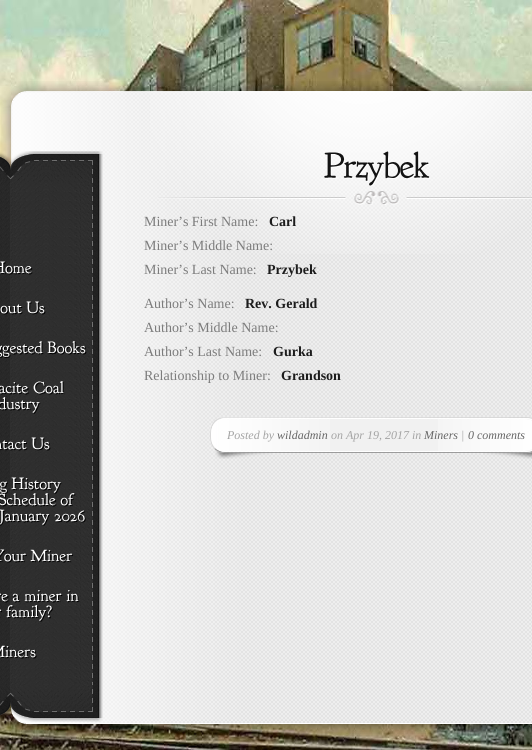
import math
import cairo

surface = cairo.ImageSurface(cairo.FORMAT_RGB24, 532, 750)
ctx = cairo.Context(surface)
options = cairo.FontOptions()
options.set_hint_metrics(cairo.HINT_METRICS_OFF)
options.set_hint_style(cairo.HINT_STYLE_NONE)
ctx.set_font_options(options)
ctx.set_miter_limit(4)


def set_color(code):
    ctx.set_source_rgb(*(v / 255 for v in bytes.fromhex(code[-6:])))


def draw_text(x, y, s, family, size, color, bold=False, italic=False):
    ctx.select_font_face(family, cairo.FONT_SLANT_ITALIC if italic else cairo.FONT_SLANT_NORMAL, cairo.FONT_WEIGHT_BOLD if bold else cairo.FONT_WEIGHT_NORMAL)
    ctx.set_font_size(size)
    set_color(color)
    ctx.move_to(x, y)
    ctx.show_text(s)


def rounded_rect(x, y, w, h, r):
    ctx.new_sub_path()
    for i, (u, v) in enumerate([(x + w - r, y + h - r), (x + r, y + h - r), (x + r, y + r), (x + w - r, y + r)]):
        ctx.arc(u, v, r, i * math.pi / 2, (i + 1) * math.pi / 2)
    ctx.close_path()


def draw_image(path, x, y, w, h):
    ctx.save()
    ctx.set_source_surface(cairo.ImageSurface.create_from_png(path), x, y)
    ctx.rectangle(x, y, w, h)
    ctx.fill()
    ctx.restore()


set_color("#ffffff")
ctx.paint()
draw_image("assets/img1.png", 0, 0, 532, 750)
draw_image("assets/img2.png", 1, 81, 531, 26)
draw_image("assets/img31.png", 1, 107, 531, 564)
draw_image("assets/img3.png", 0, 151, 103, 32)
draw_image("assets/img39.png", 2, 671, 530, 63)
draw_image("assets/img4.png", 0, 183, 103, 502)
draw_image("assets/img5.png", 0, 261, 33, 14)
draw_image("assets/img6.png", 0, 304, 23, 11)
draw_image("assets/img7.png", 26, 301, 20, 14)
draw_image("assets/img8.png", 0, 341, 44, 17)
draw_image("assets/img9.png", 47, 341, 40, 14)
draw_image("assets/img10.png", 0, 382, 29, 13)
draw_image("assets/img11.png", 33, 381, 32, 14)
draw_image("assets/img12.png", 0, 397, 41, 17)
draw_image("assets/img13.png", 0, 440, 28, 11)
draw_image("assets/img14.png", 31, 437, 20, 14)
draw_image("assets/img15.png", 0, 481, 8, 13)
draw_image("assets/img16.png", 11, 477, 51, 17)
draw_image("assets/img17.png", 0, 493, 57, 14)
draw_image("assets/img18.png", 60, 493, 16, 14)
draw_image("assets/img19.png", 0, 509, 50, 17)
draw_image("assets/img20.png", 54, 510, 32, 13)
draw_image("assets/img21.png", 0, 549, 27, 14)
draw_image("assets/img22.png", 30, 549, 43, 14)
draw_image("assets/img23.png", 0, 593, 9, 10)
draw_image("assets/img24.png", 12, 593, 9, 10)
draw_image("assets/img25.png", 24, 590, 39, 13)
draw_image("assets/img26.png", 66, 590, 14, 13)
draw_image("assets/img27.png", 0, 609, 2, 9)
draw_image("assets/img28.png", 6, 605, 47, 17)
draw_image("assets/img29.png", 0, 645, 37, 14)
draw_image("assets/img30.png", 0, 685, 103, 37)
draw_image("assets/img32.png", 150, 91, 382, 163)
draw_image("assets/img33.png", 158, 191, 374, 14)
draw_image("assets/img34.png", 324, 151, 106, 36)
draw_text(144, 226, "Miner’s First Name:", "Liberation Serif", 14, "#7c7c7c")
draw_text(269, 226, "Carl", "Liberation Serif", 14, "#1c1c1c", bold=True)
draw_text(144, 250, "Miner’s Middle Name:", "Liberation Serif", 14, "#7c7c7c")
draw_text(144, 274, "Miner’s Last Name:", "Liberation Serif", 14, "#7c7c7c")
draw_text(267, 274, "Przybek", "Liberation Serif", 14, "#1c1c1c", bold=True)
draw_text(144, 308, "Author’s Name:", "Liberation Serif", 14, "#7c7c7c")
draw_text(245, 308, "Rev. Gerald", "Liberation Serif", 14, "#1c1c1c", bold=True)
draw_text(144, 332, "Author’s Middle Name:", "Liberation Serif", 14, "#7c7c7c")
draw_text(144, 356, "Author’s Last Name:", "Liberation Serif", 14, "#7c7c7c")
draw_text(273, 356, "Gurka", "Liberation Serif", 14, "#1c1c1c", bold=True)
draw_text(144, 380, "Relationship to Miner:", "Liberation Serif", 14, "#7c7c7c")
draw_text(281, 380, "Grandson", "Liberation Serif", 14, "#1c1c1c", bold=True)
draw_image("assets/img37.png", 215, 449, 57, 10)
draw_image("assets/img38.png", 483, 452, 49, 7)
set_color("#f1f1f1")
rounded_rect(210, 417, 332, 36, 15)
ctx.fill()
ctx.new_path()
ctx.move_to(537.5, 448.5)
ctx.curve_to(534.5, 451, 531, 452.5, 527, 452.5)
ctx.line_to(225, 452.5)
ctx.curve_to(221, 452.5, 217.5, 451, 214.5, 448.5)
set_color("#9c9c9c")
ctx.set_line_width(1)
ctx.stroke()
ctx.new_path()
ctx.move_to(214.5, 448.5)
ctx.curve_to(211, 444.5, 210.5, 440, 210.5, 435)
ctx.curve_to(210.5, 427, 213, 419.5, 222, 418)
ctx.line_to(528.5, 417.5)
ctx.curve_to(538, 418.5, 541.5, 426.5, 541.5, 435)
ctx.curve_to(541.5, 440, 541, 444.5, 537.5, 448.5)
set_color("#d7d7d7")
ctx.stroke()
draw_image("assets/img35.png", 212, 418, 118, 34)
rounded_rect(211.5, 418.5, 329, 33, 14.5)
set_color("#ffffff")
ctx.stroke()
draw_image("assets/img36.png", 438, 419, 94, 32)
draw_text(227, 439, "Posted by", "Liberation Serif", 12, "#a4a4a4", italic=True)
draw_text(277, 439, "wildadmin", "Liberation Serif", 12, "#666666", italic=True)
draw_text(331, 439, "on Apr 19, 2017 in", "Liberation Serif", 12, "#a4a4a4", italic=True)
draw_text(424, 439, "Miners", "Liberation Serif", 12, "#666666", italic=True)
draw_text(461, 439, "|", "Liberation Serif", 12, "#a4a4a4", italic=True)
draw_text(468, 439, "0 comments", "Liberation Serif", 12, "#666666", italic=True)
surface.write_to_png("output.png")
